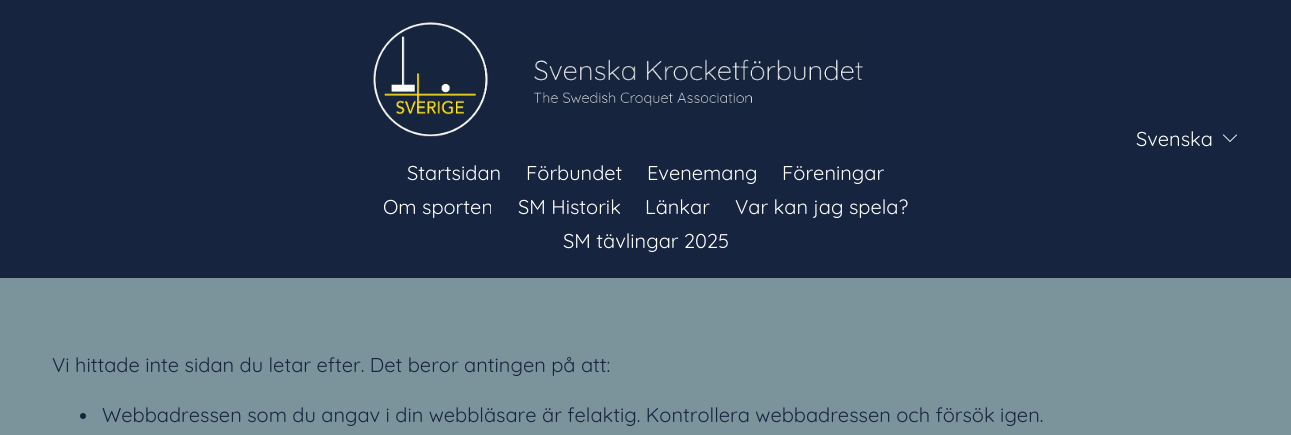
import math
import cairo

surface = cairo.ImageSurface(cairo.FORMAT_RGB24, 1291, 435)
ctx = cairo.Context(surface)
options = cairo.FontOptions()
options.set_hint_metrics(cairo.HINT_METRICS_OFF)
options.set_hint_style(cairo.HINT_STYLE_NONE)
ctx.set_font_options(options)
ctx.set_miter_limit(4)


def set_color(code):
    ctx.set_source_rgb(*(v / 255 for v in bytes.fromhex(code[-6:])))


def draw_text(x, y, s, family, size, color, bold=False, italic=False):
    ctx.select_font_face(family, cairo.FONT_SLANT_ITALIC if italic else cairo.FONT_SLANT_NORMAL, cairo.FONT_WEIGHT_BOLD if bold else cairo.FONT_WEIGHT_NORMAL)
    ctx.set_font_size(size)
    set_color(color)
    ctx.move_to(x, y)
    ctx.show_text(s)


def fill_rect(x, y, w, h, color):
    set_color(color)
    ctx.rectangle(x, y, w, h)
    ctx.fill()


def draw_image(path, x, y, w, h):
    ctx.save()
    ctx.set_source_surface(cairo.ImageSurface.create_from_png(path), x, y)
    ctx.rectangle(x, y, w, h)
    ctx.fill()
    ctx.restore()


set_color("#7b949c")
ctx.paint()
fill_rect(0, 0, 1291, 278, "#172440")
draw_text(1136, 146, "Svenska", "Quicksand", 20, "#ffffff")
ctx.new_path()
ctx.move_to(1236.5, 135)
ctx.line_to(1230, 141.5)
ctx.line_to(1223.5, 135)
ctx.set_line_width(0.9)
ctx.set_line_cap(cairo.LINE_CAP_SQUARE)
ctx.stroke()
draw_image("assets/img1.png", 373, 22, 490, 115)
draw_text(407, 180, "Startsidan", "Quicksand", 20, "#ffffff")
draw_text(526, 180, "Förbundet", "Quicksand", 20, "#ffffff")
draw_text(647, 180, "Evenemang", "Quicksand", 20, "#ffffff")
draw_text(782, 180, "Föreningar", "Quicksand", 20, "#ffffff")
draw_text(383, 214, "Om sporten", "Quicksand", 20, "#ffffff")
draw_text(518, 214, "SM Historik", "Quicksand", 20, "#ffffff")
draw_text(645, 214, "Länkar", "Quicksand", 20, "#ffffff")
draw_text(735, 214, "Var kan jag spela?", "Quicksand", 20, "#ffffff")
draw_text(563, 248, "SM tävlingar 2025", "Quicksand", 20, "#ffffff")
draw_text(52, 372, "Vi hittade inte sidan du letar efter. Det beror antingen på att:", "Quicksand", 20, "#17243f")
ctx.new_path()
ctx.arc(83, 416, 3, 0, 2 * math.pi)
ctx.fill()
draw_text(102, 422, "Webbadressen som du angav i din webbläsare är felaktig. Kontrollera webbadressen och försök igen.", "Quicksand", 20, "#17243f")
surface.write_to_png("output.png")
